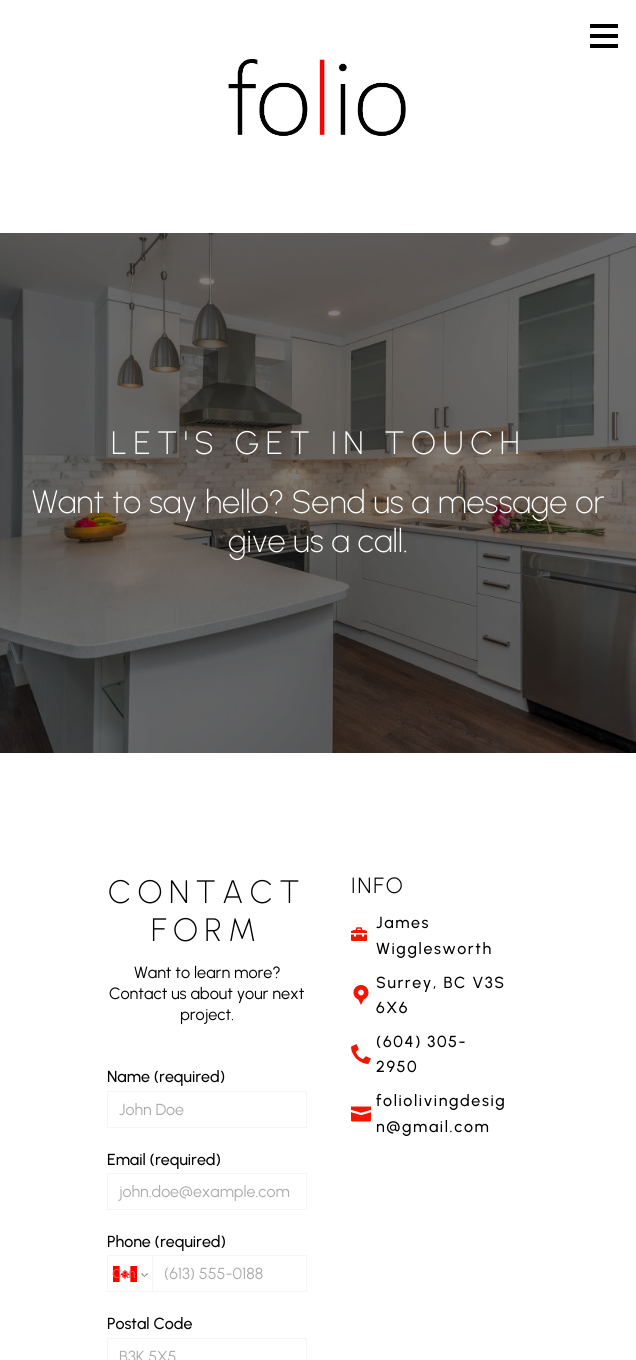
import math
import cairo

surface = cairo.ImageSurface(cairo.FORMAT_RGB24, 636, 1360)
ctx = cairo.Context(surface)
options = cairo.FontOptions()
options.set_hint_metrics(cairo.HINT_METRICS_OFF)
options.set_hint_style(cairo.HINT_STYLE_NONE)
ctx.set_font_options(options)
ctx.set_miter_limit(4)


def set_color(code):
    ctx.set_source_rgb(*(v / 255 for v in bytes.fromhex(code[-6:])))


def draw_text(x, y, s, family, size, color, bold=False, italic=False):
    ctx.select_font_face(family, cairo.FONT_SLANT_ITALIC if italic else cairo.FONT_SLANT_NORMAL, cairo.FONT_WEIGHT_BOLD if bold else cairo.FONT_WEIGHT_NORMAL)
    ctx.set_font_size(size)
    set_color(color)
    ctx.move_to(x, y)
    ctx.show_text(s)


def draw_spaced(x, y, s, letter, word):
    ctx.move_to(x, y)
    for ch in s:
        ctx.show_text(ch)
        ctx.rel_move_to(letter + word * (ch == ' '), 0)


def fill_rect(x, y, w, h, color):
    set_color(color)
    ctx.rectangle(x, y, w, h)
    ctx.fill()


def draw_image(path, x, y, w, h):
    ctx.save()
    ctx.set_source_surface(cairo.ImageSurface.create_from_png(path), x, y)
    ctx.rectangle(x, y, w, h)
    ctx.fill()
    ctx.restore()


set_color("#ffffff")
ctx.paint()
draw_image("assets/img1.png", 590, 24, 28, 24)
draw_image("assets/img2.png", 228, 58, 178, 79)
draw_image("assets/img3.png", 0, 233, 636, 520)
ctx.select_font_face("Urbanist ExtraLight")
ctx.set_font_size(32.4)
set_color("#ffffff")
draw_spaced(111, 454, "LET'S GET IN TOUCH", 6.5, 0)
draw_text(32, 513, "Want to say hello? Send us a message or", "Urbanist ExtraLight", 32.4, "#ffffff")
draw_text(228, 552, "give us a call.", "Urbanist ExtraLight", 32.4, "#ffffff")
set_color("#000000")
draw_spaced(108, 903, "CONTACT", 6.5, 0)
draw_spaced(151, 941, "FORM", 6.5, 0)
draw_text(134, 978, "Want to learn more?", "Urbanist", 16.25, "#000000")
draw_text(109, 999, "Contact us about your next", "Urbanist", 16.25, "#000000")
draw_text(180, 1020, "project.", "Urbanist", 16.25, "#000000")
draw_text(107, 1082, "Name (required)", "Urbanist Medium", 16, "#000000")
ctx.rectangle(107.5, 1091.5, 199, 36)
set_color("#f5f5f5")
ctx.set_line_width(1)
ctx.stroke()
draw_text(119, 1115, "John Doe", "Urbanist", 16, "#ababab")
draw_text(107, 1165, "Email (required)", "Urbanist Medium", 16, "#000000")
ctx.rectangle(107.5, 1173.5, 199, 36)
set_color("#f5f5f5")
ctx.stroke()
draw_text(119, 1197, "john.doe@example.com", "Urbanist", 16, "#ababab")
draw_text(107, 1247, "Phone (required)", "Urbanist Medium", 16, "#000000")
fill_rect(107, 1255, 45, 1, "#f5f5f5")
fill_rect(107, 1291, 45, 1, "#f5f5f5")
fill_rect(107, 1255, 1, 37, "#f5f5f5")
draw_image("assets/img4.png", 113, 1266, 24, 16)
draw_text(112, 1278, "Can", "Liberation Sans", 13, "#ff5252")
set_color("#8c8c8c")
ctx.new_path()
ctx.move_to(147, 1273)
ctx.line_to(148, 1274)
ctx.line_to(144.5, 1277)
ctx.line_to(144, 1276.5)
ctx.close_path()
ctx.fill()
ctx.new_path()
ctx.move_to(142, 1273)
ctx.line_to(145, 1276.5)
ctx.line_to(144.5, 1277)
ctx.line_to(141, 1274)
ctx.close_path()
ctx.fill()
ctx.rectangle(152.5, 1255.5, 154, 36)
set_color("#f5f5f5")
ctx.stroke()
draw_text(164, 1279, "(613) 555-0188", "Urbanist", 16, "#ababab")
draw_text(107, 1329, "Postal Code", "Urbanist Medium", 16, "#000000")
ctx.rectangle(107.5, 1338.5, 199, 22)
set_color("#f5f5f5")
ctx.stroke()
draw_text(119, 1362, "B3K 5X5", "Urbanist", 16, "#ababab")
ctx.select_font_face("Urbanist Light")
ctx.set_font_size(22)
set_color("#000000")
draw_spaced(351, 893, "INFO", 2, 0)
draw_image("assets/img5.png", 351, 927, 16, 14)
ctx.select_font_face("Urbanist Medium")
ctx.set_font_size(16)
draw_spaced(376, 928, "James", 1.6, 0)
draw_spaced(376, 954, "Wigglesworth", 1.6, 0)
draw_image("assets/img6.png", 353, 985, 16, 20)
draw_spaced(376, 988, "Surrey, BC V3S", 1.6, 0)
draw_spaced(376, 1013, "6X6", 1.6, 0)
draw_image("assets/img7.png", 351, 1044, 20, 20)
draw_spaced(376, 1047, "(604) 305-", 1.6, 0)
draw_spaced(376, 1072, "2950", 1.6, 0)
draw_image("assets/img8.png", 351, 1106, 20, 16)
draw_spaced(376, 1106, "foliolivingdesig", 1.6, 0)
draw_spaced(376, 1132, "n@gmail.com", 1.6, 0)
surface.write_to_png("output.png")
